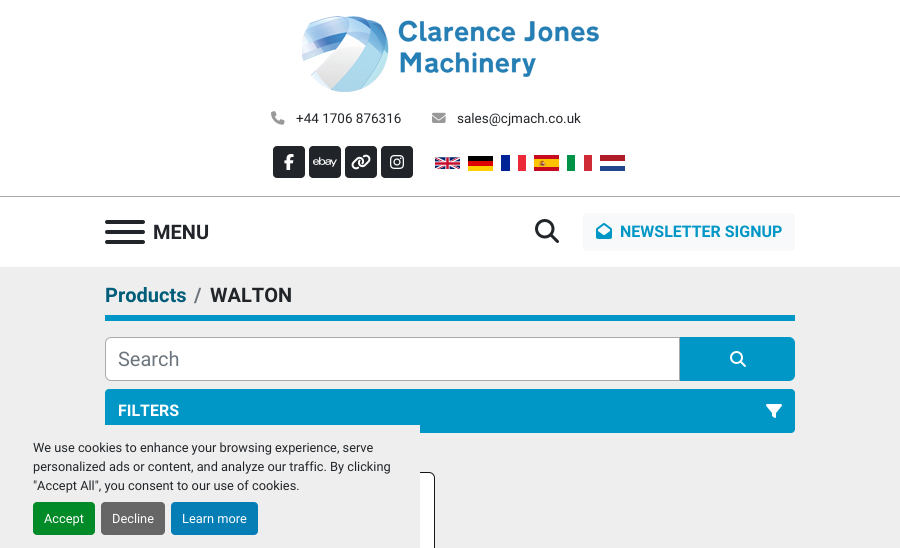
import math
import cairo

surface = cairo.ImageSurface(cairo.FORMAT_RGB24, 900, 548)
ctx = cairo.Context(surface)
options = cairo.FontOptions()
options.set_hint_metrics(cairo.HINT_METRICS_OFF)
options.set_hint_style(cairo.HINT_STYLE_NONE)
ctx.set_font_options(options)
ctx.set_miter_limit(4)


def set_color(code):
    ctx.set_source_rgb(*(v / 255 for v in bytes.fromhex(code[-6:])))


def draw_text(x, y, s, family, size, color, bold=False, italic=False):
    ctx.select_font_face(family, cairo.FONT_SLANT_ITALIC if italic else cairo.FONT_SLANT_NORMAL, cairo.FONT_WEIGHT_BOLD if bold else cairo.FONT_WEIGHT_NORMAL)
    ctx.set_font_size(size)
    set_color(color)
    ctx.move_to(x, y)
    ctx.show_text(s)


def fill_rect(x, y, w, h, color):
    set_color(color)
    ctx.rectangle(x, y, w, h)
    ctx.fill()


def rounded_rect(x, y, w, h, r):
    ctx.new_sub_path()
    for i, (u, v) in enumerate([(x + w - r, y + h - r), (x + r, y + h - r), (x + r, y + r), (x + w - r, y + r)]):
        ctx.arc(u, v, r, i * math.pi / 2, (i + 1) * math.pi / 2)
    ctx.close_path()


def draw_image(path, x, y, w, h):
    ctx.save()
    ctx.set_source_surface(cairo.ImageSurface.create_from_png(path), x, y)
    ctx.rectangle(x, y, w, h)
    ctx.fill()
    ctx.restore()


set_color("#eeeeee")
ctx.paint()
fill_rect(0, 0, 900, 267, "#ffffff")
fill_rect(0, 196, 900, 1, "#a6a8a9")
draw_image("assets/img1.png", 302, 16, 297, 76)
draw_image("assets/img2.png", 271, 111, 14, 14)
draw_text(296, 123, "+44 1706 876316", "Roboto", 13.5, "#212529")
draw_image("assets/img3.png", 432, 112, 14, 11)
draw_text(457, 123, "sales@cjmach.co.uk", "Roboto", 13.5, "#212529")
rounded_rect(273, 146, 32, 32, 4)
ctx.fill()
draw_image("assets/img4.png", 284, 154, 10, 16)
rounded_rect(309, 146, 32, 32, 4)
ctx.fill()
draw_image("assets/img5.png", 313, 157, 24, 10)
rounded_rect(345, 146, 32, 32, 4)
ctx.fill()
draw_image("assets/img6.png", 351, 154, 20, 16)
rounded_rect(381, 146, 32, 32, 4)
ctx.fill()
draw_image("assets/img7.png", 390, 155, 14, 14)
draw_image("assets/img8.png", 435, 157, 25, 12)
fill_rect(468, 156, 25, 5, "#000000")
fill_rect(468, 161, 25, 5, "#dd0000")
fill_rect(468, 166, 25, 5, "#ffce00")
fill_rect(501, 155, 9, 16, "#002395")
fill_rect(518, 155, 8, 16, "#ed2939")
draw_image("assets/img9.png", 534, 155, 25, 16)
fill_rect(567, 155, 8, 16, "#009246")
fill_rect(584, 155, 8, 16, "#ce2b37")
fill_rect(600, 155, 25, 6, "#ae1c28")
fill_rect(600, 166, 25, 5, "#21468b")
set_color("#212529")
rounded_rect(105, 230, 40, 4, 2)
ctx.fill()
rounded_rect(105, 220, 40, 4, 2)
ctx.fill()
rounded_rect(105, 240, 40, 4, 2)
ctx.fill()
draw_text(153, 239, "MENU", "Roboto", 20, "#212529", bold=True)
draw_image("assets/img10.png", 535, 219, 24, 24)
set_color("#f8f9fa")
rounded_rect(583, 213, 212, 38, 4)
ctx.fill()
draw_image("assets/img11.png", 596, 223, 16, 16)
draw_text(620, 237, "NEWSLETTER SIGNUP", "Roboto", 16, "#0097c6", bold=True)
fill_rect(105, 315, 690, 6, "#0097c6")
draw_text(105, 302, "Products", "Roboto", 20, "#005d7a", bold=True)
draw_text(194, 302, "/", "Roboto", 20, "#6c757d", bold=True)
draw_text(210, 302, "WALTON", "Roboto", 20, "#212529", bold=True)
set_color("#ffffff")
ctx.new_path()
ctx.move_to(111, 337.5)
ctx.line_to(679.5, 337.5)
ctx.line_to(679.5, 380.5)
ctx.line_to(111, 380.5)
ctx.curve_to(108, 380.5, 105.5, 378, 105.5, 375)
ctx.line_to(105.5, 343)
ctx.curve_to(105.5, 340, 108, 337.5, 111, 337.5)
ctx.close_path()
ctx.fill_preserve()
set_color("#aaaaaa")
ctx.set_line_width(1)
ctx.stroke()
draw_text(118, 366, "Search", "Roboto", 20, "#6c757d")
set_color("#0097c6")
ctx.new_path()
ctx.move_to(680.5, 337.5)
ctx.line_to(789, 337.5)
ctx.curve_to(792, 337.5, 794.5, 340, 794.5, 343)
ctx.line_to(794.5, 375)
ctx.curve_to(794.5, 378, 792, 380.5, 789, 380.5)
ctx.line_to(680.5, 380.5)
ctx.close_path()
ctx.fill_preserve()
ctx.stroke()
draw_image("assets/img12.png", 730, 351, 16, 16)
rounded_rect(105.5, 389.5, 689, 43, 3.5)
ctx.fill_preserve()
ctx.stroke()
draw_text(118, 416, "FILTERS", "Roboto", 16, "#ffffff", bold=True)
draw_image("assets/img13.png", 766, 404, 16, 14)
rounded_rect(105.5, 472.5, 329, 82, 5.5)
ctx.fill_preserve()
set_color("#151515")
ctx.stroke()
fill_rect(105, 425, 315, 123, "#eeeeee")
draw_text(33, 452, "We use cookies to enhance your browsing experience, serve", "Roboto", 12.8, "#212529")
draw_text(33, 471, "personalized ads or content, and analyze our traffic. By clicking", "Roboto", 12.8, "#212529")
draw_text(33, 490, "\"Accept All\", you consent to our use of cookies.", "Roboto", 12.8, "#212529")
set_color("#008a28")
rounded_rect(33, 502, 62, 33, 4)
ctx.fill()
draw_text(44, 523, "Accept", "Roboto", 12.8, "#ffffff")
set_color("#666666")
rounded_rect(101, 502, 64, 33, 4)
ctx.fill()
draw_text(112, 523, "Decline", "Roboto", 12.8, "#ffffff")
set_color("#057eb6")
rounded_rect(171, 502, 87, 33, 4)
ctx.fill()
draw_text(182, 523, "Learn more", "Roboto", 12.8, "#ffffff")
surface.write_to_png("output.png")
